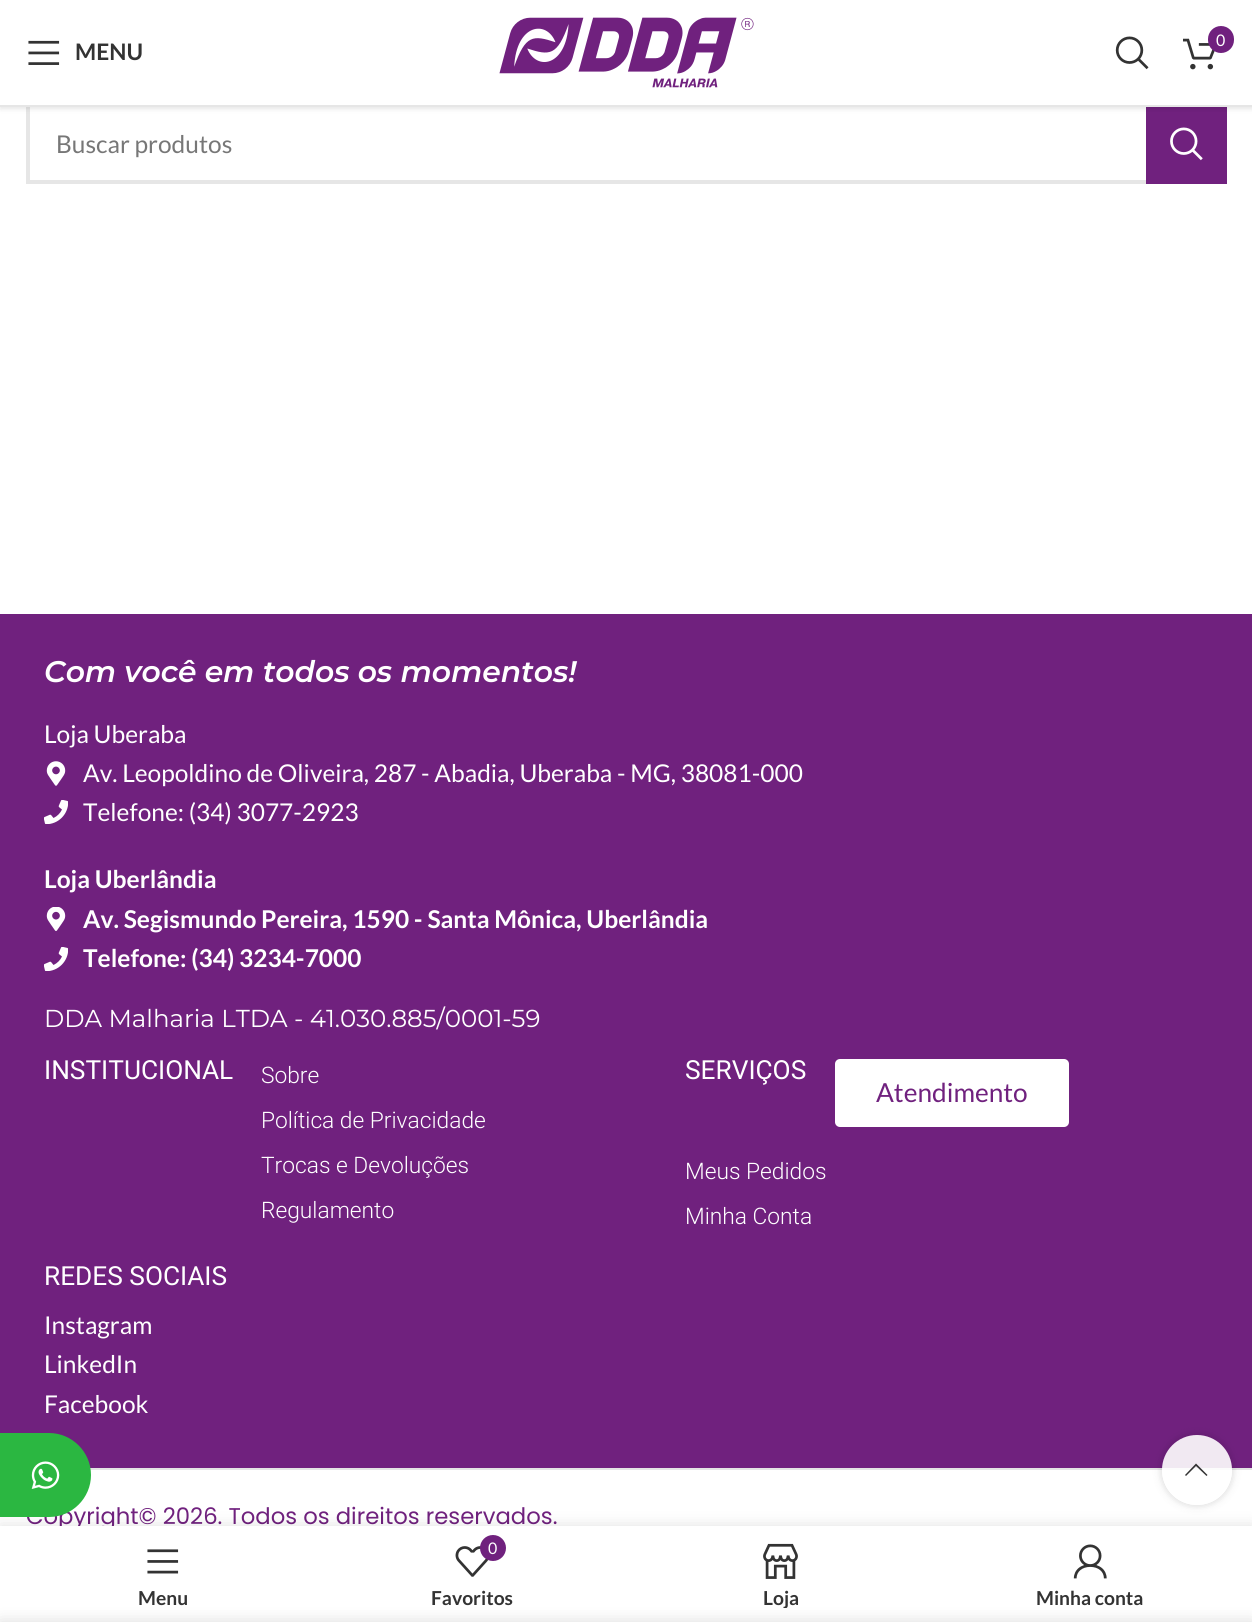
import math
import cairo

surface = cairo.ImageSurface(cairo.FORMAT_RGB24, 1252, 1622)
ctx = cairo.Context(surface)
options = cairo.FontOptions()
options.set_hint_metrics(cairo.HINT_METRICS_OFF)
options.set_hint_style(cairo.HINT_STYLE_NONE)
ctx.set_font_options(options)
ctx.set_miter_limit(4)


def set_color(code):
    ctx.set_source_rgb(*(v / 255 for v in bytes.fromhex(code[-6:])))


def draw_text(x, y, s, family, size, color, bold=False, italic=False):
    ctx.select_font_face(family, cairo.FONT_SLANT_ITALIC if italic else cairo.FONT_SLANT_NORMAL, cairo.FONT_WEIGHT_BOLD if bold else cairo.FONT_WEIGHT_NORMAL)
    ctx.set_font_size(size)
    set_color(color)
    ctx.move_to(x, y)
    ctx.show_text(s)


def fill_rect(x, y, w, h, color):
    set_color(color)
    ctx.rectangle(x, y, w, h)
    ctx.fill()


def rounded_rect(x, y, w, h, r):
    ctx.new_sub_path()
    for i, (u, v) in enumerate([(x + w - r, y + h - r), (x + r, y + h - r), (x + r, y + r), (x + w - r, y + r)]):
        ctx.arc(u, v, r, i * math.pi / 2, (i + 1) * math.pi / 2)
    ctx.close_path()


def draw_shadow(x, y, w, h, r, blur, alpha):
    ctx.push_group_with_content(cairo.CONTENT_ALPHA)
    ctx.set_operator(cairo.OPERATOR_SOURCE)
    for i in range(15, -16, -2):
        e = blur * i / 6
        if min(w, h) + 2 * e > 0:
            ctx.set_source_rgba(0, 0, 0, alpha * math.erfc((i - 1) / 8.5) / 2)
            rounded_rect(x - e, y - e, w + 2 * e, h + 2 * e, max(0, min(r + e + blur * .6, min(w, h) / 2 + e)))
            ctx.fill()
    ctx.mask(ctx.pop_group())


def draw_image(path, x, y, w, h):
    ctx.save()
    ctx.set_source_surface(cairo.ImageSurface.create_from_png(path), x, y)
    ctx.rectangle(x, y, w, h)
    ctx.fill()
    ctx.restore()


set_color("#ffffff")
ctx.paint()
ctx.rectangle(28, 105, 1197, 77)
set_color("#e6e6e6")
ctx.set_line_width(4)
ctx.stroke()
fill_rect(1146, 107, 81, 77, "#70217e")
set_color("#000000")
draw_shadow(0, 2, 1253, 107, 0, 2.5, 0.1)
fill_rect(0, 0, 1252, 105, "#ffffff")
fill_rect(0, 105, 1252, 2, "#e6e6e6")
draw_image("assets/img1.png", 499, 17, 255, 71)
draw_image("assets/img2.png", 1115, 36, 34, 34)
draw_image("assets/img3.png", 1183, 38, 32, 32)
set_color("#70217e")
rounded_rect(1208, 26, 26, 27, 13)
ctx.fill()
draw_text(1216, 46, "0", "Lato", 16, "#ffffff")
draw_image("assets/img4.png", 28, 40, 32, 25)
draw_text(75, 60, "MENU", "Lato", 22.75, "#333333", bold=True)
draw_text(56, 153, "Buscar produtos", "Lato", 24.5, "#777777")
draw_image("assets/img5.png", 1170, 127, 33, 34)
fill_rect(0, 614, 1252, 854, "#70217e")
draw_text(44, 682, "Com você em todos os momentos!", "Montserrat SemiBold", 29.75, "#ffffff", italic=True)
draw_text(44, 743, "Loja Uberaba", "Lato", 24.5, "#ffffff")
draw_image("assets/img6.png", 46, 761, 20, 25)
draw_text(83, 782, "Av. Leopoldino de Oliveira, 287 - Abadia, Uberaba - MG, 38081-000", "Lato", 24.5, "#ffffff")
draw_image("assets/img7.png", 44, 800, 24, 24)
draw_text(83, 821, "Telefone: (34) 3077-2923", "Lato", 24.5, "#ffffff")
draw_text(44, 888, "Loja Uberlândia", "Lato", 24.5, "#ffffff", bold=True)
draw_image("assets/img8.png", 46, 907, 20, 24)
draw_text(83, 928, "Av. Segismundo Pereira, 1590 - Santa Mônica, Uberlândia", "Lato", 24.5, "#ffffff", bold=True)
draw_image("assets/img7.png", 44, 947, 24, 24)
draw_text(83, 967, "Telefone: (34) 3234-7000", "Lato", 24.5, "#ffffff", bold=True)
draw_text(44, 1027, "DDA Malharia LTDA - 41.030.885/0001-59", "Montserrat", 24.5, "#ffffff")
draw_text(44, 1079, "INSTITUCIONAL", "Roboto", 26.25, "#ffffff")
draw_text(261, 1083, "Sobre", "Roboto Light", 22.75, "#ffffff")
draw_text(261, 1128, "Política de Privacidade", "Roboto Light", 22.75, "#ffffff")
draw_text(261, 1173, "Trocas e Devoluções", "Roboto Light", 22.75, "#ffffff")
draw_text(261, 1218, "Regulamento", "Roboto Light", 22.75, "#ffffff")
draw_text(685, 1079, "SERVIÇOS", "Roboto", 26.25, "#ffffff")
rounded_rect(835, 1059, 234, 68, 5)
ctx.fill()
draw_text(876, 1102, "Atendimento", "Lato", 26.25, "#70217e")
draw_text(685, 1179, "Meus Pedidos", "Roboto Light", 22.75, "#ffffff")
draw_text(685, 1224, "Minha Conta", "Roboto Light", 22.75, "#ffffff")
draw_text(44, 1285, "REDES SOCIAIS", "Roboto", 26.25, "#ffffff")
draw_text(44, 1334, "Instagram", "Lato", 24.5, "#ffffff")
draw_text(44, 1373, "LinkedIn", "Lato", 24.5, "#ffffff")
draw_text(44, 1413, "Facebook", "Lato", 24.5, "#ffffff")
fill_rect(90, 1468, 1162, 2, "#e4e4e4")
draw_text(26, 1524, "Copyright© 2026. Todos os direitos reservados.", "Poppins", 22.75, "#70217e")
ctx.save()
ctx.set_fill_rule(cairo.FILL_RULE_EVEN_ODD)
ctx.new_path()
ctx.move_to(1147, 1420)
ctx.line_to(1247, 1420)
ctx.line_to(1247, 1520)
ctx.line_to(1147, 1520)
ctx.close_path()
ctx.move_to(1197, 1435)
ctx.curve_to(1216.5, 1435, 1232, 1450.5, 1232, 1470)
ctx.curve_to(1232, 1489.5, 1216.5, 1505, 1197, 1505)
ctx.curve_to(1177.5, 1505, 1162, 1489.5, 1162, 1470)
ctx.curve_to(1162, 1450.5, 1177.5, 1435, 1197, 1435)
ctx.close_path()
ctx.clip()
set_color("#000000")
draw_shadow(1162, 1435, 70, 70, 35, 4.5, 0.17)
ctx.restore()
ctx.set_source_rgba(1, 1, 1, 0.9)
ctx.arc(1197, 1470, 35, 0, 2 * math.pi)
ctx.fill()
set_color("#000000")
draw_shadow(0, 1526, 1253, 96, 0, 8, 0.12)
set_color("#2bb741")
ctx.new_path()
ctx.move_to(0, 1433)
ctx.line_to(49, 1433)
ctx.curve_to(72, 1433, 91, 1452, 91, 1475)
ctx.curve_to(91, 1498, 72, 1517, 49, 1517)
ctx.line_to(0, 1517)
ctx.close_path()
ctx.fill()
draw_image("assets/img9.png", 31, 1461, 29, 28)
set_color("#333333")
ctx.new_path()
ctx.move_to(1206.5, 1476)
ctx.line_to(1207.5, 1475)
ctx.line_to(1196, 1463.5)
ctx.line_to(1185, 1475)
ctx.line_to(1186, 1476)
ctx.line_to(1196, 1466)
ctx.close_path()
ctx.fill()
fill_rect(0, 1526, 1252, 96, "#ffffff")
draw_image("assets/img10.png", 147, 1549, 32, 25)
draw_text(138, 1605, "Menu", "Lato", 19.25, "#333333", bold=True)
draw_image("assets/img11.png", 455, 1546, 34, 31)
set_color("#70217e")
ctx.arc(493, 1548, 13, 0, 2 * math.pi)
ctx.fill()
draw_text(488, 1554, "0", "Lato", 16, "#ffffff")
draw_text(431, 1605, "Favoritos", "Lato", 19.25, "#333333", bold=True)
draw_image("assets/img12.png", 763, 1543, 35, 36)
ctx.save()
ctx.rectangle(644, 1586, 275, 22)
ctx.clip()
draw_text(763, 1605, "Loja", "Lato", 19.25, "#333333", bold=True)
ctx.restore()
draw_image("assets/img13.png", 1073, 1544, 34, 35)
draw_text(1036, 1605, "Minha conta", "Lato", 19.25, "#333333", bold=True)
set_color("#000000")
draw_shadow(0, 1622, 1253, 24, 0, 8, 0.14)
surface.write_to_png("output.png")
